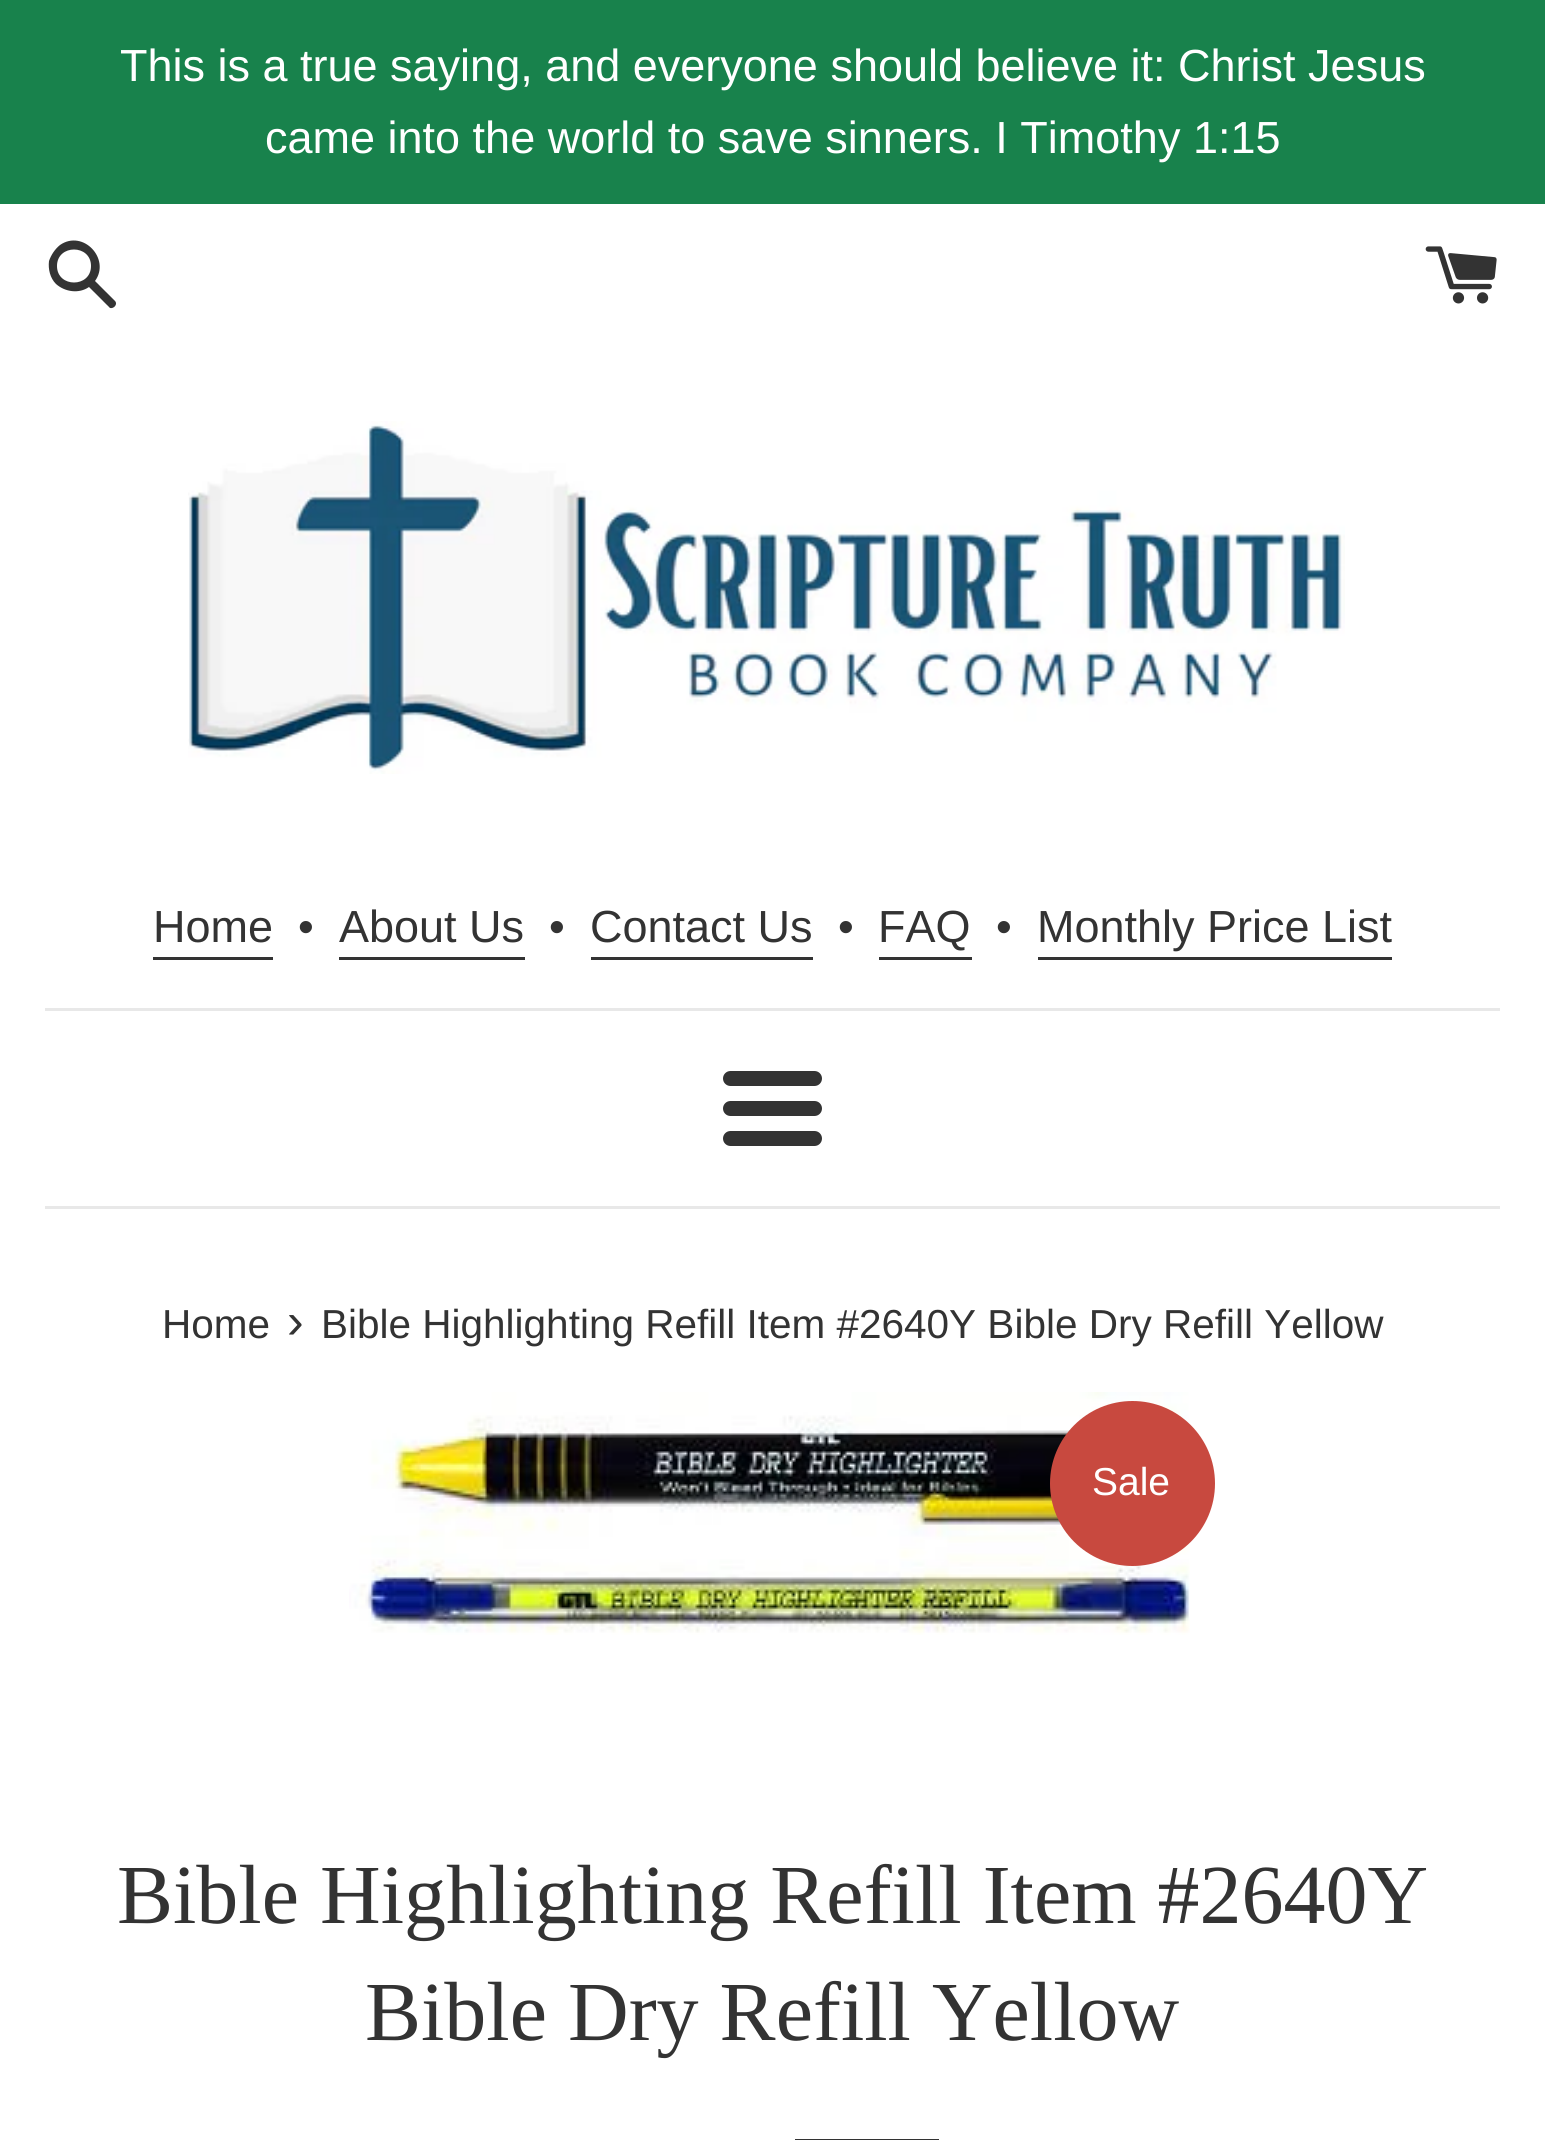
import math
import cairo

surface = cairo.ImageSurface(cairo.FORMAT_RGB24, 1545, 2140)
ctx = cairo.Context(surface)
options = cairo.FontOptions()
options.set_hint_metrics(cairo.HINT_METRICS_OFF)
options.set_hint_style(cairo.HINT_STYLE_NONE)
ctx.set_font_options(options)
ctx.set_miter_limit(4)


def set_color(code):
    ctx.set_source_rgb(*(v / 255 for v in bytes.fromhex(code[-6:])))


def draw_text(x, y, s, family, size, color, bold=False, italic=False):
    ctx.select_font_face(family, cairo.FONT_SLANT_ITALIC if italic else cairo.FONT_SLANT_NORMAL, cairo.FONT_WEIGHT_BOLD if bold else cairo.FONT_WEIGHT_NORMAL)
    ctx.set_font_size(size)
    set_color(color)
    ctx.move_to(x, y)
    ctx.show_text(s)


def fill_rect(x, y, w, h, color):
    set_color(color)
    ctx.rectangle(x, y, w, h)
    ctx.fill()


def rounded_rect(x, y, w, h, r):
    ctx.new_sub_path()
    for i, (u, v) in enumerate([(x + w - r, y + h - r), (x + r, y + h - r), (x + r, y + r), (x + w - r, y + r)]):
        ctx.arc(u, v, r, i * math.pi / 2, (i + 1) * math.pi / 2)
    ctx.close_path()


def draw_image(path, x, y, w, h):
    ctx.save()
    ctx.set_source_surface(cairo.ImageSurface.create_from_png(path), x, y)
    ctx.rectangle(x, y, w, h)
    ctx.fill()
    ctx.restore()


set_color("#ffffff")
ctx.paint()
fill_rect(0, 0, 1545, 204, "#18824c")
draw_text(120, 81, "This is a true saying, and everyone should believe it: Christ Jesus", "Liberation Sans", 45, "#ffffff")
draw_text(265, 153, "came into the world to save sinners. I Timothy 1:15", "Liberation Sans", 45, "#ffffff")
set_color("#333333")
ctx.new_path()
ctx.move_to(115, 301)
ctx.line_to(95, 281)
ctx.curve_to(111, 259, 83, 229, 60, 245)
ctx.curve_to(55, 249, 51, 255, 49, 261)
ctx.curve_to(48, 269, 50, 278, 56, 284)
ctx.curve_to(65, 292, 79, 294, 89, 287)
ctx.line_to(110, 308)
ctx.curve_to(114, 309, 118, 304, 115, 301)
ctx.close_path()
ctx.move_to(57, 266)
ctx.curve_to(57, 244, 91, 244, 91, 266)
ctx.curve_to(91, 288, 57, 288, 57, 266)
ctx.close_path()
ctx.fill()
draw_image("assets/img1.png", 1425, 246, 72, 58)
draw_image("assets/img2.png", 188, 421, 1157, 353)
draw_text(153, 942, "Home", "Liberation Sans", 45, "#333333")
fill_rect(153, 957, 120, 3, "#333333")
draw_text(298, 942, "•", "Liberation Sans", 45, "#333333")
draw_text(339, 942, "About Us", "Liberation Sans", 45, "#333333")
fill_rect(339, 957, 186, 3, "#333333")
draw_text(549, 942, "•", "Liberation Sans", 45, "#333333")
draw_text(590, 942, "Contact Us", "Liberation Sans", 45, "#333333")
fill_rect(591, 957, 222, 3, "#333333")
draw_text(838, 942, "•", "Liberation Sans", 45, "#333333")
draw_text(878, 942, "FAQ", "Liberation Sans", 45, "#333333")
fill_rect(879, 957, 93, 3, "#333333")
draw_text(996, 942, "•", "Liberation Sans", 45, "#333333")
draw_text(1037, 942, "Monthly Price List", "Liberation Sans", 45, "#333333")
fill_rect(1038, 957, 354, 3, "#333333")
fill_rect(45, 1008, 1455, 3, "#e8e8e8")
set_color("#333333")
rounded_rect(723, 1071, 99, 15, 7.5)
ctx.fill()
rounded_rect(723, 1101, 99, 15, 7.5)
ctx.fill()
rounded_rect(723, 1131, 99, 15, 7.5)
ctx.fill()
fill_rect(45, 1206, 1455, 3, "#e8e8e8")
draw_text(162, 1338, "Home", "Liberation Sans", 40.5, "#333333")
draw_text(287, 1338, "›", "Liberation Sans", 50, "#333333")
draw_text(321, 1338, "Bible Highlighting Refill Item #2640Y Bible Dry Refill Yellow", "Liberation Sans", 40.5, "#333333")
draw_image("assets/img3.png", 349, 1392, 841, 243)
set_color("#c8493f")
ctx.arc(1132.5, 1483.5, 82.5, 0, 2 * math.pi)
ctx.fill()
draw_text(1092, 1495, "Sale", "Liberation Sans", 39, "#ffffff")
draw_text(117, 1923, "Bible Highlighting Refill Item #2640Y", "Liberation Serif", 84, "#333333")
draw_text(365, 2040, "Bible Dry Refill Yellow", "Liberation Serif", 84, "#333333")
fill_rect(795, 2139, 144, 1, "#333333")
surface.write_to_png("output.png")
